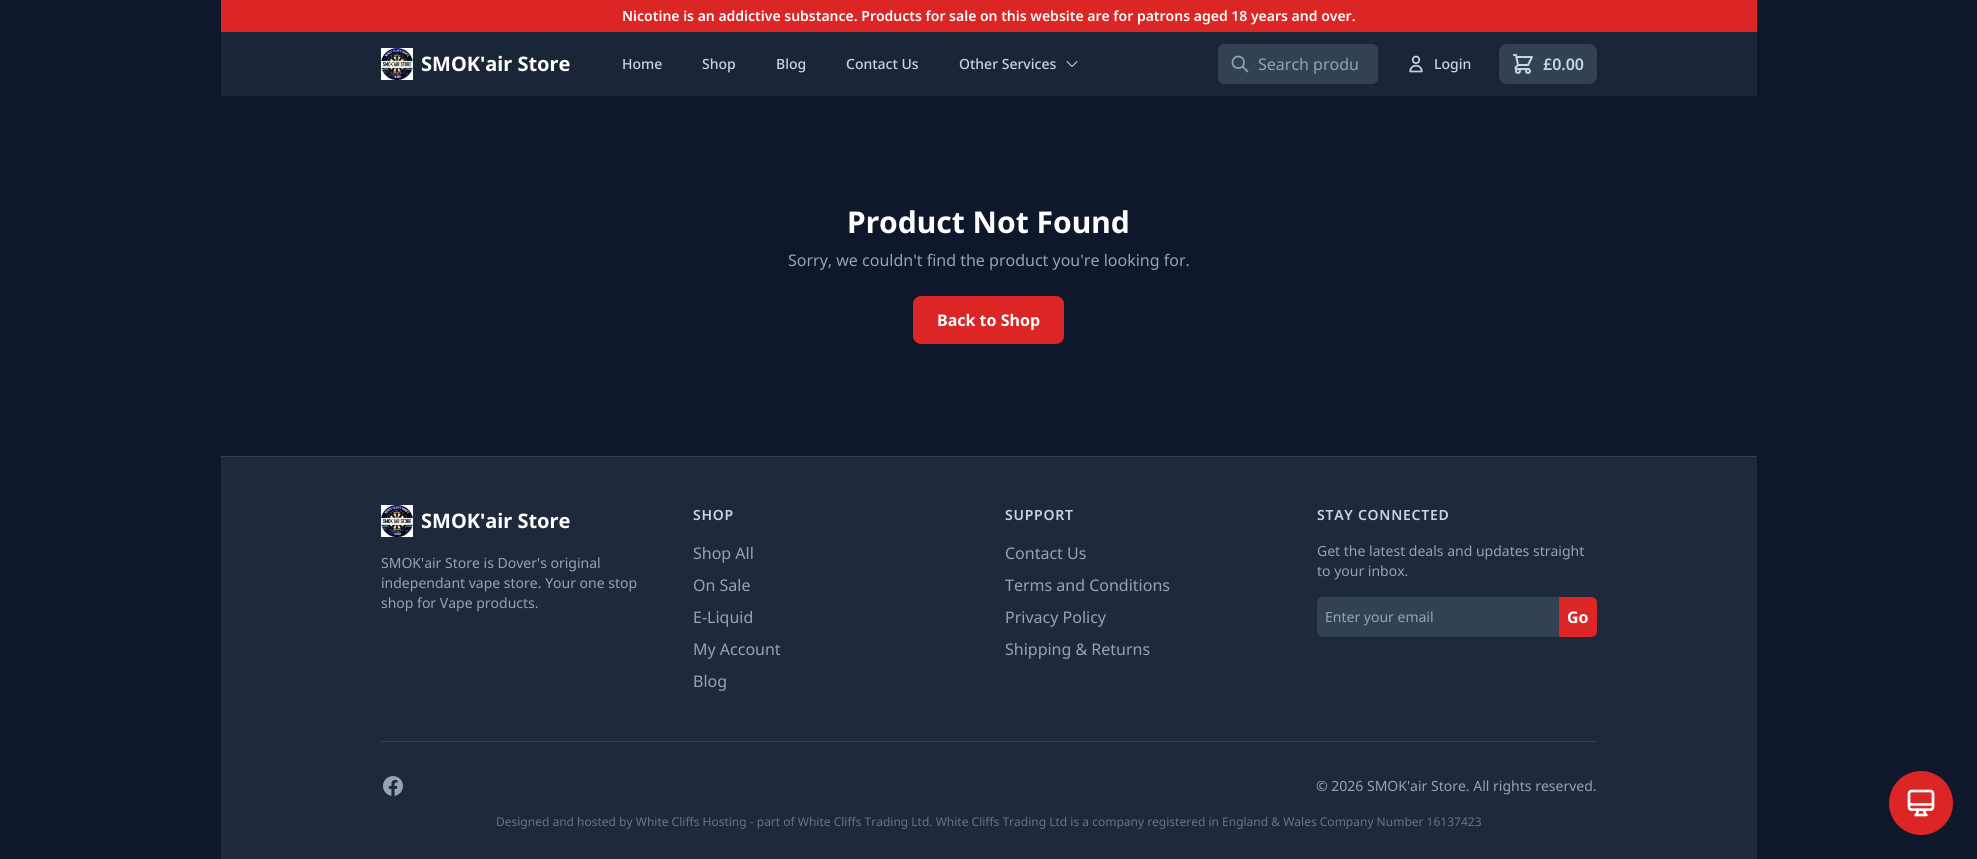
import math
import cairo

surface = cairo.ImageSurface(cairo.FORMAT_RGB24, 1977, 859)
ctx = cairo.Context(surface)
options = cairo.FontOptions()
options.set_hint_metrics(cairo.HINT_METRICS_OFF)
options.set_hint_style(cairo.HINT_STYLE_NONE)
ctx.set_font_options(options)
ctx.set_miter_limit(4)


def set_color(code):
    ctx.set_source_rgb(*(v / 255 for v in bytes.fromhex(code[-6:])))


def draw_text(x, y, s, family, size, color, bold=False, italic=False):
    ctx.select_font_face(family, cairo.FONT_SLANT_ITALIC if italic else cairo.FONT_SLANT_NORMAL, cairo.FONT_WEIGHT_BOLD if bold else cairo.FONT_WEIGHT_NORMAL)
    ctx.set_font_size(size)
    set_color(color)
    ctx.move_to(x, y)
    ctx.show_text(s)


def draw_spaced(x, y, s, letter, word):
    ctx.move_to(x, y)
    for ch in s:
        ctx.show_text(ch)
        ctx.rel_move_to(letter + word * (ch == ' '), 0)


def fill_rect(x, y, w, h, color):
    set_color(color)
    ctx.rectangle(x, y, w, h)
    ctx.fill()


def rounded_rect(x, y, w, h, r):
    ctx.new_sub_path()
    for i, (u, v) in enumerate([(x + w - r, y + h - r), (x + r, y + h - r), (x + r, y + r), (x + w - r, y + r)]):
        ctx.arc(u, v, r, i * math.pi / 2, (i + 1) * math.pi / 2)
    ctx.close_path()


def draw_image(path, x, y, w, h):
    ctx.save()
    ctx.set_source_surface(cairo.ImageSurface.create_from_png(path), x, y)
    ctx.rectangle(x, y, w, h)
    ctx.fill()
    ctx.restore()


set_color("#0f172a")
ctx.paint()
fill_rect(221, 32, 1536, 64, "#1b2538")
fill_rect(221, 0, 1536, 32, "#dc2626")
draw_text(622, 21, "Nicotine is an addictive substance. Products for sale on this website are for patrons aged 18 years and over.", "Noto Sans SemiBold", 14, "#ffffff")
draw_image("assets/img1.png", 381, 48, 32, 32)
draw_text(421, 71, "SMOK'air Store", "Noto Sans", 20, "#ffffff", bold=True)
draw_text(622, 69, "Home", "Noto Sans Medium", 14, "#cbd5e1")
draw_text(702, 69, "Shop", "Noto Sans Medium", 14, "#cbd5e1")
draw_text(776, 69, "Blog", "Noto Sans Medium", 14, "#cbd5e1")
draw_text(846, 69, "Contact Us", "Noto Sans Medium", 14, "#cbd5e1")
draw_text(959, 69, "Other Services", "Noto Sans Medium", 14, "#cbd5e1")
ctx.new_path()
ctx.move_to(1077, 61.5)
ctx.line_to(1072, 66.5)
ctx.line_to(1067, 61.5)
ctx.set_line_width(1)
ctx.set_line_cap(cairo.LINE_CAP_ROUND)
ctx.set_line_join(cairo.LINE_JOIN_ROUND)
ctx.stroke()
set_color("#334155")
rounded_rect(1218, 44, 160, 40, 6)
ctx.fill()
ctx.new_path()
ctx.move_to(1247.5, 71.5)
ctx.line_to(1242.5, 66.5)
ctx.move_to(1244, 62.5)
ctx.curve_to(1244, 70, 1232.5, 70, 1232.5, 62.5)
ctx.curve_to(1232.5, 54.5, 1244, 54.5, 1244, 62.5)
ctx.close_path()
set_color("#94a3b8")
ctx.set_line_width(1.7)
ctx.stroke()
draw_text(1258, 70, "Search produ", "Noto Sans", 16, "#94a3b8")
draw_image("assets/img2.png", 1409, 55, 14, 18)
draw_text(1434, 69, "Login", "Noto Sans Medium", 14, "#cbd5e1")
set_color("#334155")
rounded_rect(1499, 44, 98, 40, 8)
ctx.fill()
draw_image("assets/img3.png", 1513, 54, 20, 20)
draw_text(1543, 70, "£0.00", "Noto Sans SemiBold", 16, "#cbd5e1")
draw_text(847, 233, "Product Not Found", "Noto Sans", 30, "#ffffff", bold=True)
draw_text(788, 266, "Sorry, we couldn't find the product you're looking for.", "Noto Sans", 16, "#94a3b8")
set_color("#dc2626")
rounded_rect(913, 296, 151, 48, 8)
ctx.fill()
draw_text(937, 326, "Back to Shop", "Noto Sans", 16, "#ffffff", bold=True)
fill_rect(221, 457, 1536, 402, "#1e293b")
fill_rect(221, 456, 1536, 1, "#334155")
draw_image("assets/img4.png", 381, 505, 32, 32)
draw_text(421, 528, "SMOK'air Store", "Noto Sans", 20, "#ffffff", bold=True)
draw_text(381, 568, "SMOK'air Store is Dover's original", "Noto Sans", 14, "#94a3b8")
draw_text(381, 588, "independant vape store. Your one stop", "Noto Sans", 14, "#94a3b8")
draw_text(381, 608, "shop for Vape products.", "Noto Sans", 14, "#94a3b8")
ctx.select_font_face("Noto Sans SemiBold")
set_color("#cbd5e1")
draw_spaced(693, 520, "SHOP", 0.75, 0)
draw_text(693, 559, "Shop All", "Noto Sans", 16, "#94a3b8")
draw_text(693, 591, "On Sale", "Noto Sans", 16, "#94a3b8")
draw_text(693, 623, "E-Liquid", "Noto Sans", 16, "#94a3b8")
draw_text(693, 655, "My Account", "Noto Sans", 16, "#94a3b8")
draw_text(693, 687, "Blog", "Noto Sans", 16, "#94a3b8")
ctx.select_font_face("Noto Sans SemiBold")
ctx.set_font_size(14)
set_color("#cbd5e1")
draw_spaced(1005, 520, "SUPPORT", 0.75, 0)
draw_text(1005, 559, "Contact Us", "Noto Sans", 16, "#94a3b8")
draw_text(1005, 591, "Terms and Conditions", "Noto Sans", 16, "#94a3b8")
draw_text(1005, 623, "Privacy Policy", "Noto Sans", 16, "#94a3b8")
draw_text(1005, 655, "Shipping & Returns", "Noto Sans", 16, "#94a3b8")
ctx.select_font_face("Noto Sans SemiBold")
ctx.set_font_size(14)
set_color("#cbd5e1")
draw_spaced(1317, 520, "STAY CONNECTED", 0.75, 0)
draw_text(1317, 556, "Get the latest deals and updates straight", "Noto Sans", 14, "#94a3b8")
draw_text(1317, 576, "to your inbox.", "Noto Sans", 14, "#94a3b8")
set_color("#334155")
ctx.new_path()
ctx.move_to(1323, 597)
ctx.line_to(1559, 597)
ctx.line_to(1559, 637)
ctx.line_to(1323, 637)
ctx.curve_to(1319.5, 637, 1317, 634.5, 1317, 631)
ctx.line_to(1317, 603)
ctx.curve_to(1317, 599.5, 1319.5, 597, 1323, 597)
ctx.close_path()
ctx.fill()
draw_text(1325, 622, "Enter your email", "Noto Sans", 14, "#9ca3af")
set_color("#dc2626")
ctx.new_path()
ctx.move_to(1559, 597)
ctx.line_to(1591, 597)
ctx.curve_to(1594.5, 597, 1597, 599.5, 1597, 603)
ctx.line_to(1597, 631)
ctx.curve_to(1597, 634.5, 1594.5, 637, 1591, 637)
ctx.line_to(1559, 637)
ctx.close_path()
ctx.fill()
draw_text(1567, 623, "Go", "Noto Sans", 16, "#ffffff", bold=True)
fill_rect(381, 741, 1216, 1, "#334155")
draw_image("assets/img5.png", 383, 776, 20, 20)
draw_text(1316, 791, "© 2026 SMOK'air Store. All rights reserved.", "Noto Sans", 14, "#94a3b8")
draw_text(496, 826, "Designed and hosted by White Cliffs Hosting - part of White Cliffs Trading Ltd. White Cliffs Trading Ltd is a company registered in England & Wales Company Number 16137423", "Noto Sans", 12, "#64748b")
set_color("#dc2626")
ctx.new_path()
ctx.arc(1921, 803, 32, 0, 2 * math.pi)
ctx.fill()
draw_image("assets/img6.png", 1907, 789, 28, 28)
surface.write_to_png("output.png")
